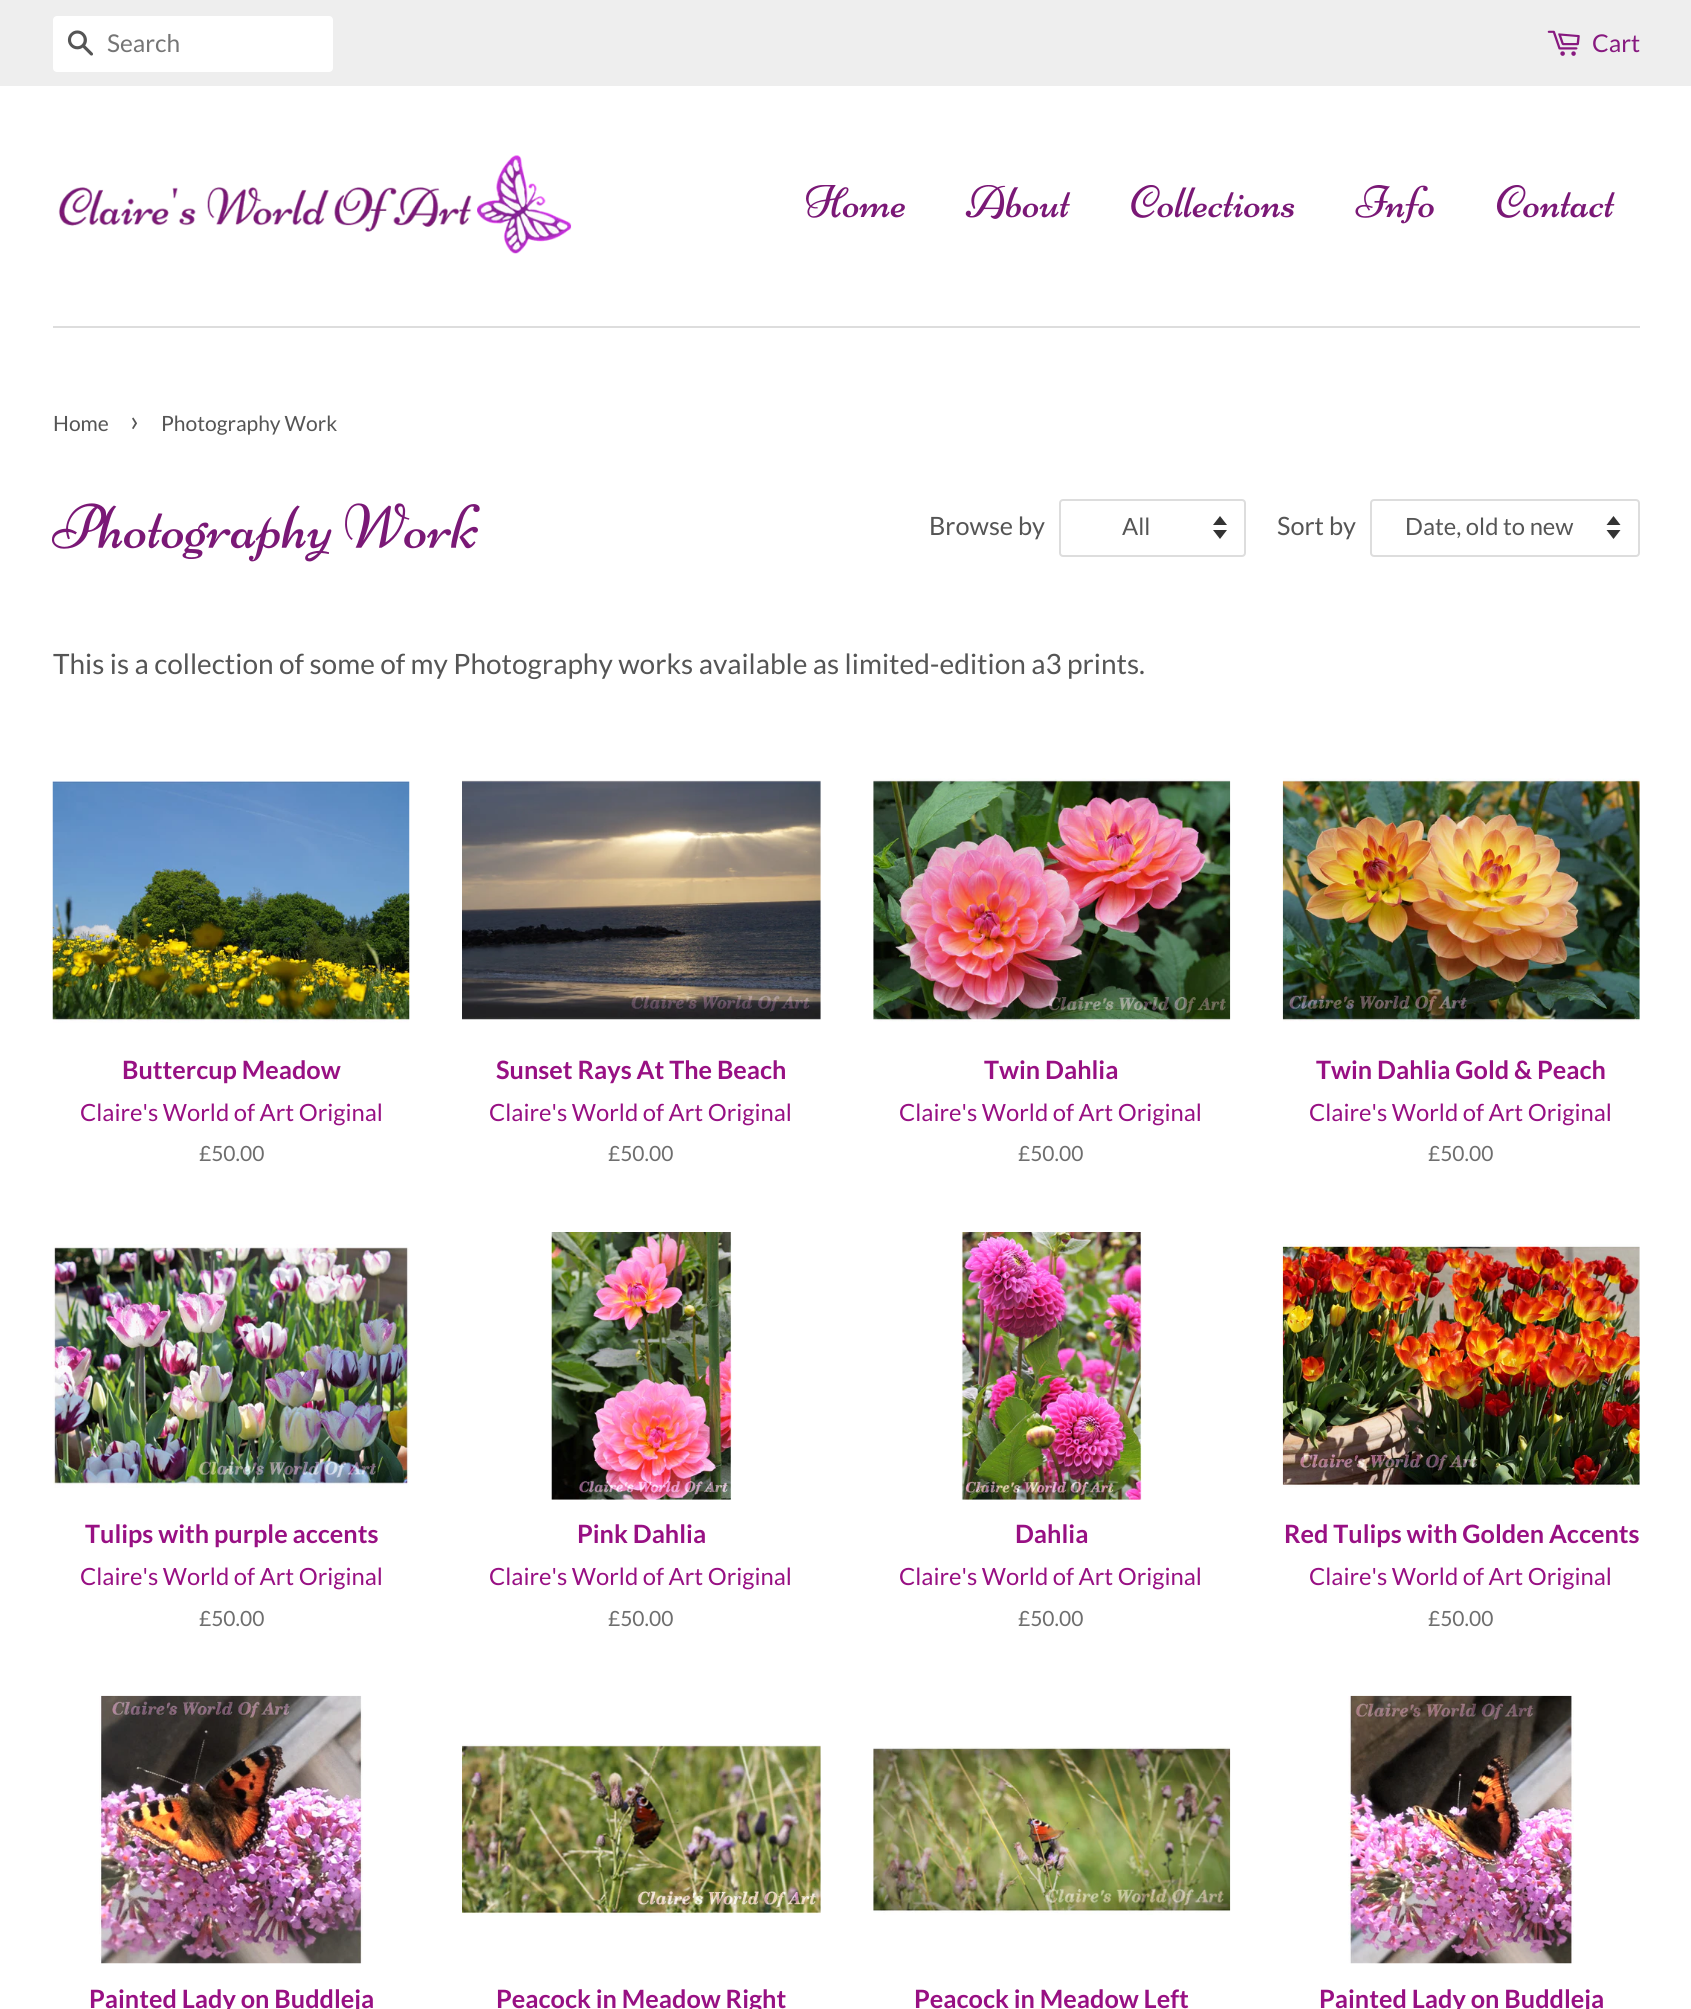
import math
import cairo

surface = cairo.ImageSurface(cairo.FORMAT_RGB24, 1691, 2009)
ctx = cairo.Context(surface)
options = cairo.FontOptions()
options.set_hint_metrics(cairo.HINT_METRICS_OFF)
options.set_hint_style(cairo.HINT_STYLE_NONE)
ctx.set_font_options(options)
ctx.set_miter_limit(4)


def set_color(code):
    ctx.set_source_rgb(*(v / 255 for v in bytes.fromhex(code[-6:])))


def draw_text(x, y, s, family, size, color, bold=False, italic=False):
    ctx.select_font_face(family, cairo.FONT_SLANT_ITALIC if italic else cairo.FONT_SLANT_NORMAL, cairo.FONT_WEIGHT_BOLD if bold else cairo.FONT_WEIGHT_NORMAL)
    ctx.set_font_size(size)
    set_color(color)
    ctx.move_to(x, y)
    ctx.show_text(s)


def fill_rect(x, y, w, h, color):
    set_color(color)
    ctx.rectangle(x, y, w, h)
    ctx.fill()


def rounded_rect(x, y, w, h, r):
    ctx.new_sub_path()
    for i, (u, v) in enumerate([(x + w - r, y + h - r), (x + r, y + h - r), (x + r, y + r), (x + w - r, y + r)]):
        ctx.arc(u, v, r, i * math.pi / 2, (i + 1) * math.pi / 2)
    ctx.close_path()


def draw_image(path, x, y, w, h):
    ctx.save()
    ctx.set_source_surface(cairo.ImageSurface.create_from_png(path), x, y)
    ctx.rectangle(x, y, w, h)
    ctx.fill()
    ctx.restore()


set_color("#ffffff")
ctx.paint()
fill_rect(0, 0, 1691, 86, "#eeeeee")
set_color("#ffffff")
rounded_rect(53, 16, 280, 56, 4)
ctx.fill()
draw_image("assets/img1.png", 67, 30, 26, 26)
draw_text(107, 52, "Search", "Lato", 24.5, "#757575")
draw_image("assets/img2.png", 1547, 30, 33, 26)
draw_text(1592, 52, "Cart", "Lato", 24.5, "#87197f")
fill_rect(53, 326, 1587, 2, "#dddddd")
draw_image("assets/img3.png", 58, 155, 514, 99)
draw_image("assets/img4.png", 806, 185, 99, 33)
draw_image("assets/img5.png", 965, 185, 106, 34)
draw_image("assets/img6.png", 1131, 185, 164, 33)
draw_image("assets/img7.png", 1355, 185, 79, 39)
draw_image("assets/img8.png", 1496, 185, 119, 33)
draw_text(53, 431, "Home", "Lato", 21, "#555555")
draw_text(130, 431, "›", "Lato", 29, "#555555")
draw_text(161, 431, "Photography Work", "Lato", 21, "#555555")
draw_image("assets/img9.png", 51, 503, 429, 59)
draw_text(929, 535, "Browse by", "Lato", 25.25, "#555555")
set_color("#333333")
ctx.new_path()
ctx.move_to(1213, 530)
ctx.line_to(1220, 539)
ctx.line_to(1227, 530)
ctx.close_path()
ctx.move_to(1220, 516)
ctx.line_to(1213, 525)
ctx.line_to(1227, 525)
ctx.close_path()
ctx.fill()
rounded_rect(1060, 500, 185, 56, 3)
set_color("#dddddd")
ctx.stroke()
draw_text(1122, 535, "All", "Lato", 23.75, "#555555")
draw_text(1277, 535, "Sort by", "Lato", 25.25, "#555555")
set_color("#333333")
ctx.new_path()
ctx.move_to(1606.5, 530)
ctx.line_to(1613.5, 539)
ctx.line_to(1620.5, 530)
ctx.close_path()
ctx.move_to(1613.5, 516)
ctx.line_to(1606.5, 525)
ctx.line_to(1620.5, 525)
ctx.close_path()
ctx.fill()
rounded_rect(1371, 500, 268, 56, 3)
set_color("#dddddd")
ctx.stroke()
draw_text(1405, 535, "Date, old to new", "Lato", 23.75, "#555555")
draw_text(53, 674, "This is a collection of some of my Photography works available as limited-edition a3 prints.", "Lato", 28, "#555555")
draw_image("assets/img10.png", 52, 781, 358, 242)
draw_text(122, 1079, "Buttercup Meadow", "Lato", 25.25, "#981083", bold=True)
draw_text(80, 1121, "Claire's World of Art Original", "Lato", 23.75, "#981083")
draw_text(199, 1161, "£50.00", "Lato", 21, "#6e6e6e")
draw_image("assets/img11.png", 462, 780, 359, 240)
draw_text(496, 1079, "Sunset Rays At The Beach", "Lato", 25.25, "#981083", bold=True)
draw_text(489, 1121, "Claire's World of Art Original", "Lato", 23.75, "#981083")
draw_text(608, 1161, "£50.00", "Lato", 21, "#6e6e6e")
draw_image("assets/img12.png", 873, 778, 358, 244)
draw_text(984, 1079, "Twin Dahlia", "Lato", 25.25, "#981083", bold=True)
draw_text(899, 1121, "Claire's World of Art Original", "Lato", 23.75, "#981083")
draw_text(1018, 1161, "£50.00", "Lato", 21, "#6e6e6e")
draw_image("assets/img13.png", 1282, 778, 358, 244)
draw_text(1316, 1079, "Twin Dahlia Gold & Peach", "Lato", 25.25, "#981083", bold=True)
draw_text(1309, 1121, "Claire's World of Art Original", "Lato", 23.75, "#981083")
draw_text(1428, 1161, "£50.00", "Lato", 21, "#6e6e6e")
draw_image("assets/img14.png", 53, 1244, 356, 244)
draw_text(85, 1543, "Tulips with purple accents", "Lato", 25.25, "#981083", bold=True)
draw_text(80, 1585, "Claire's World of Art Original", "Lato", 23.75, "#981083")
draw_text(199, 1626, "£50.00", "Lato", 21, "#6e6e6e")
draw_image("assets/img15.png", 550, 1232, 182, 268)
draw_text(577, 1543, "Pink Dahlia", "Lato", 25.25, "#981083", bold=True)
draw_text(489, 1585, "Claire's World of Art Original", "Lato", 23.75, "#981083")
draw_text(608, 1626, "£50.00", "Lato", 21, "#6e6e6e")
draw_image("assets/img16.png", 961, 1232, 181, 268)
draw_text(1015, 1543, "Dahlia", "Lato", 25.25, "#981083", bold=True)
draw_text(899, 1585, "Claire's World of Art Original", "Lato", 23.75, "#981083")
draw_text(1018, 1626, "£50.00", "Lato", 21, "#6e6e6e")
draw_image("assets/img17.png", 1282, 1244, 358, 244)
draw_text(1284, 1543, "Red Tulips with Golden Accents", "Lato", 25.25, "#981083", bold=True)
draw_text(1309, 1585, "Claire's World of Art Original", "Lato", 23.75, "#981083")
draw_text(1428, 1626, "£50.00", "Lato", 21, "#6e6e6e")
draw_image("assets/img18.png", 99, 1695, 264, 269)
draw_text(89, 2008, "Painted Lady on Buddleja", "Lato", 25.25, "#981083", bold=True)
draw_image("assets/img19.png", 462, 1744, 359, 172)
draw_text(496, 2008, "Peacock in Meadow Right", "Lato", 25.25, "#981083", bold=True)
draw_image("assets/img20.png", 873, 1746, 358, 169)
draw_text(914, 2008, "Peacock in Meadow Left", "Lato", 25.25, "#981083", bold=True)
draw_image("assets/img21.png", 1348, 1695, 226, 269)
draw_text(1319, 2008, "Painted Lady on Buddleja", "Lato", 25.25, "#981083", bold=True)
surface.write_to_png("output.png")
